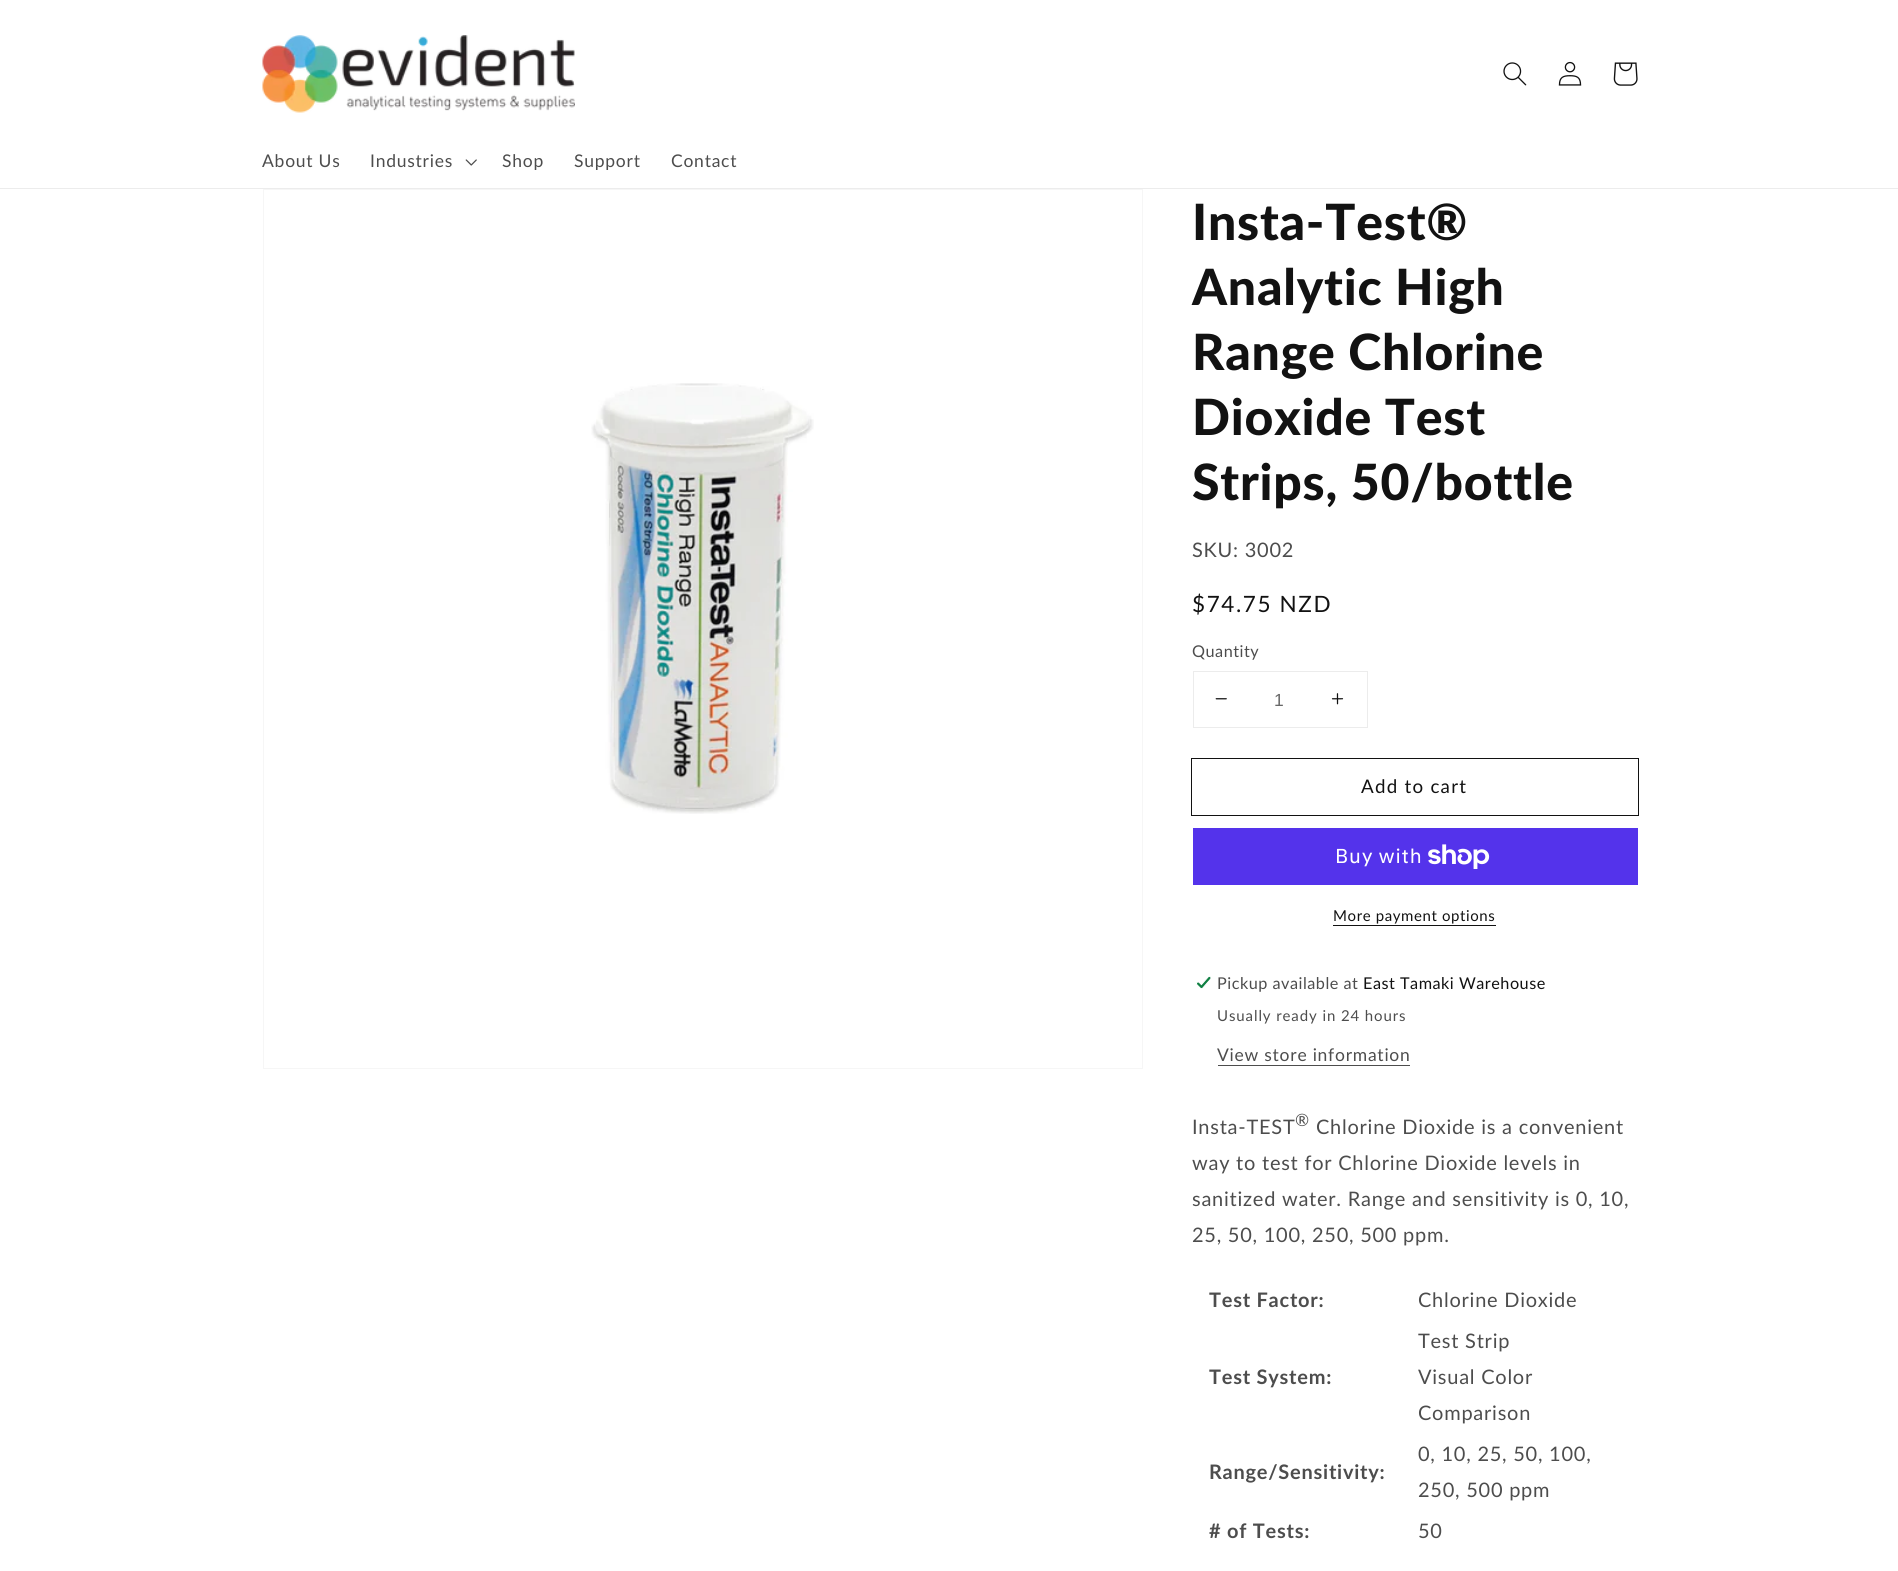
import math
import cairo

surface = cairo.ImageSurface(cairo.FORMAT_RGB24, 1898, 1571)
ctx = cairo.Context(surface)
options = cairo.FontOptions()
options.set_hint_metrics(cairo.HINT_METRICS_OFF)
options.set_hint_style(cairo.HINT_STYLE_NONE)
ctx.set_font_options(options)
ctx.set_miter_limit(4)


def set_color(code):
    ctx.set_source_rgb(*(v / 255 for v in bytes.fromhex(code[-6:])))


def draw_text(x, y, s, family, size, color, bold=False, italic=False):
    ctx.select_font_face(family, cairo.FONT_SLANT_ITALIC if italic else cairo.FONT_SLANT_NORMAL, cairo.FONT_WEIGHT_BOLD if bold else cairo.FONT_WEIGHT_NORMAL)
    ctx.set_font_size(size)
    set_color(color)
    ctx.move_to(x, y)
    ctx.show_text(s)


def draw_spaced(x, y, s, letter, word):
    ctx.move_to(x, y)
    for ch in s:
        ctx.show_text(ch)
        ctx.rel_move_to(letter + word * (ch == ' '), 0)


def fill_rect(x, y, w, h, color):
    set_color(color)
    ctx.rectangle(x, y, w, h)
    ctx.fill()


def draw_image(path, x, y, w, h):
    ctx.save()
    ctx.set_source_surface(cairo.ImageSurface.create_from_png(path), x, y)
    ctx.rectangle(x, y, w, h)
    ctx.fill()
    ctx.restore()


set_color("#ffffff")
ctx.paint()
fill_rect(0, 188, 1898, 1, "#ececec")
draw_image("assets/img1.png", 262, 35, 313, 78)
draw_image("assets/img2.png", 1503, 62, 24, 24)
draw_image("assets/img3.png", 1558, 61, 24, 25)
draw_image("assets/img4.png", 1613, 62, 25, 24)
ctx.select_font_face("Lato")
ctx.set_font_size(17.5)
set_color("#4d4d4d")
draw_spaced(262, 167, "About Us", 0.75, 0)
draw_spaced(370, 167, "Industries", 0.75, 0)
draw_image("assets/img5.png", 465, 159, 12, 7)
draw_spaced(502, 167, "Shop", 0.75, 0)
draw_spaced(574, 167, "Support", 0.75, 0)
draw_spaced(671, 167, "Contact", 0.75, 0)
ctx.rectangle(263.5, 189.5, 879, 879)
set_color("#f6f6f6")
ctx.set_line_width(1)
ctx.stroke()
draw_image("assets/img6.png", 591, 383, 223, 431)
ctx.select_font_face("Lato Black")
ctx.set_font_size(50)
set_color("#121212")
draw_spaced(1192, 240, "Insta-Test®", 0.75, 0)
draw_spaced(1192, 305, "Analytic High", 0.75, 0)
draw_spaced(1192, 370, "Range Chlorine", 0.75, 0)
draw_spaced(1192, 435, "Dioxide Test", 0.75, 0)
draw_spaced(1192, 500, "Strips, 50/bottle", 0.75, 0)
ctx.select_font_face("Lato")
ctx.set_font_size(20)
set_color("#4d4d4d")
draw_spaced(1192, 557, "SKU: 3002", 0.75, 0)
ctx.set_font_size(22.5)
set_color("#121212")
draw_spaced(1192, 612, "$74.75 NZD", 1.6, 0)
ctx.set_font_size(16.25)
set_color("#4d4d4d")
draw_spaced(1192, 657, "Quantity", 0.5, 0)
ctx.rectangle(1193.5, 671.5, 174, 56)
set_color("#ececec")
ctx.stroke()
draw_image("assets/img7.png", 1215, 698, 12, 2)
draw_text(1274, 706, "1", "Liberation Sans", 17.5, "#686868")
draw_image("assets/img8.png", 1331, 693, 13, 12)
ctx.rectangle(1191.5, 758.5, 447, 57)
set_color("#121212")
ctx.stroke()
ctx.select_font_face("Lato")
ctx.set_font_size(18.75)
draw_spaced(1361, 793, "Add to cart", 1.25, 0)
fill_rect(1193, 828, 445, 57, "#5433eb")
ctx.select_font_face("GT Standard")
ctx.set_font_size(20)
set_color("#ffffff")
draw_spaced(1335, 863, "Buy with", 0.75, 0)
draw_image("assets/img9.png", 1428, 844, 62, 25)
ctx.select_font_face("Lato")
ctx.set_font_size(15)
set_color("#121212")
draw_spaced(1333, 921, "More payment options", 0.6, 0)
fill_rect(1333, 925, 163, 1, "#121212")
draw_image("assets/img10.png", 1196, 976, 15, 13)
ctx.set_font_size(16.25)
set_color("#4d4d4d")
draw_spaced(1217, 989, "Pickup available at", 0.5, 0)
set_color("#121212")
draw_spaced(1363, 989, "East Tamaki Warehouse", 0.5, 0)
ctx.set_font_size(15)
set_color("#4d4d4d")
draw_spaced(1217, 1021, "Usually ready in 24 hours", 0.9, 0)
ctx.set_font_size(17.5)
draw_spaced(1217, 1061, "View store information", 0.75, 0)
fill_rect(1218, 1065, 192, 1, "#4d4d4d")
ctx.set_font_size(20)
draw_spaced(1192, 1134, "Insta-TEST", 0.75, 0)
ctx.set_font_size(17)
draw_spaced(1295, 1126, "®", 0.75, 0)
ctx.set_font_size(20)
draw_spaced(1316, 1134, "Chlorine Dioxide is a convenient", 0.75, 0)
draw_spaced(1192, 1170, "way to test for Chlorine Dioxide levels in", 0.75, 0)
draw_spaced(1192, 1206, "sanitized water. Range and sensitivity is 0, 10,", 0.75, 0)
draw_spaced(1192, 1242, "25, 50, 100, 250, 500 ppm.", 0.75, 0)
ctx.select_font_face("Lato", cairo.FONT_SLANT_NORMAL, cairo.FONT_WEIGHT_BOLD)
draw_spaced(1209, 1307, "Test Factor:", 0.75, 0)
ctx.select_font_face("Lato")
draw_spaced(1418, 1307, "Chlorine Dioxide", 0.75, 0)
ctx.select_font_face("Lato", cairo.FONT_SLANT_NORMAL, cairo.FONT_WEIGHT_BOLD)
draw_spaced(1209, 1384, "Test System:", 0.75, 0)
ctx.select_font_face("Lato")
draw_spaced(1418, 1348, "Test Strip", 0.75, 0)
draw_spaced(1418, 1384, "Visual Color", 0.75, 0)
draw_spaced(1418, 1420, "Comparison", 0.75, 0)
ctx.select_font_face("Lato", cairo.FONT_SLANT_NORMAL, cairo.FONT_WEIGHT_BOLD)
draw_spaced(1209, 1479, "Range/Sensitivity:", 0.75, 0)
ctx.select_font_face("Lato")
draw_spaced(1418, 1461, "0, 10, 25, 50, 100,", 0.75, 0)
draw_spaced(1418, 1497, "250, 500 ppm", 0.75, 0)
ctx.select_font_face("Lato", cairo.FONT_SLANT_NORMAL, cairo.FONT_WEIGHT_BOLD)
draw_spaced(1209, 1538, "# of Tests:", 0.75, 0)
ctx.select_font_face("Lato")
draw_spaced(1418, 1538, "50", 0.75, 0)
surface.write_to_png("output.png")
